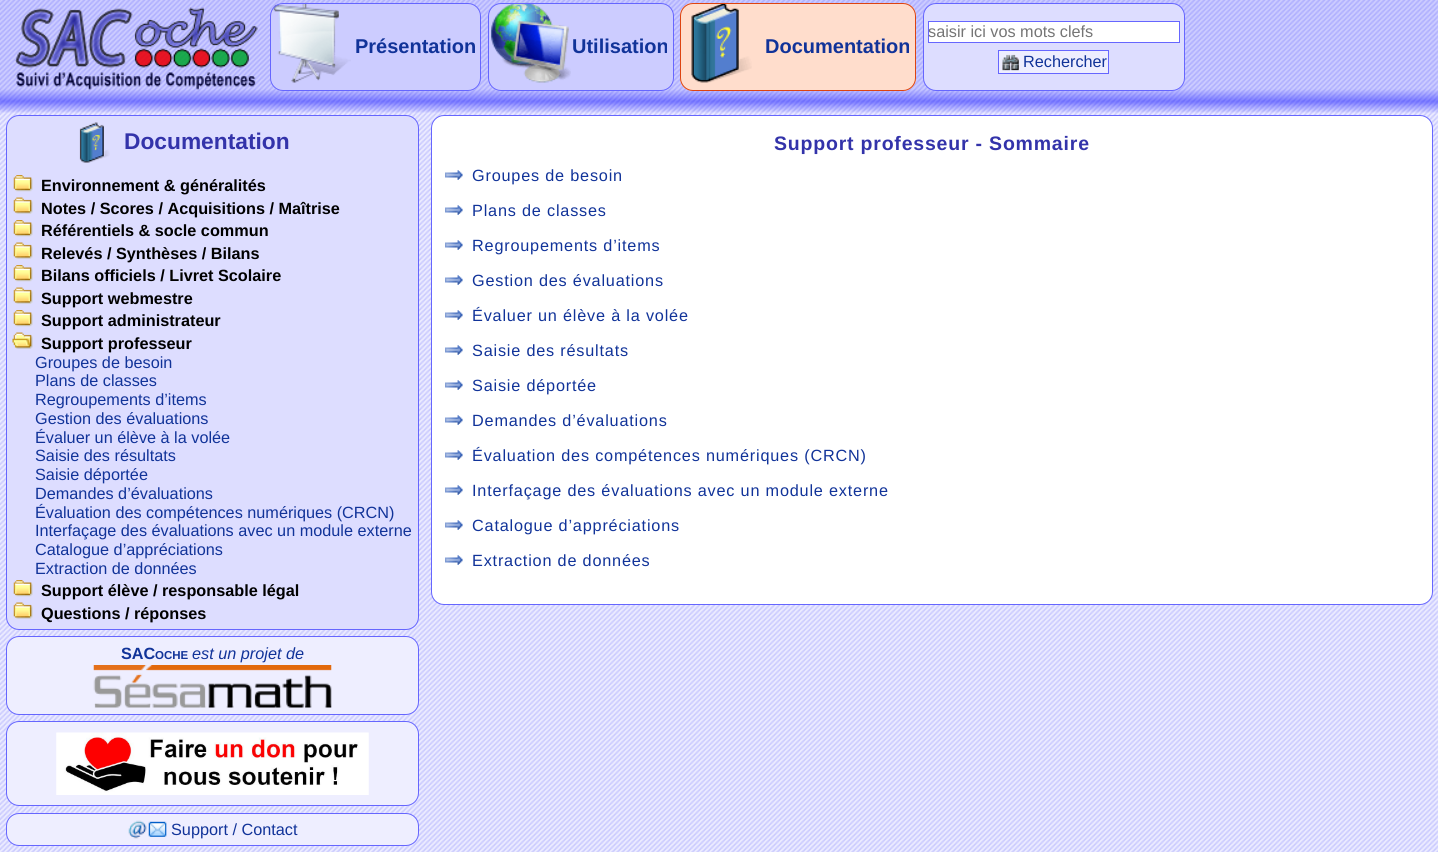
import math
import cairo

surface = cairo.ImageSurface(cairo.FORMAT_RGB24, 1438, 852)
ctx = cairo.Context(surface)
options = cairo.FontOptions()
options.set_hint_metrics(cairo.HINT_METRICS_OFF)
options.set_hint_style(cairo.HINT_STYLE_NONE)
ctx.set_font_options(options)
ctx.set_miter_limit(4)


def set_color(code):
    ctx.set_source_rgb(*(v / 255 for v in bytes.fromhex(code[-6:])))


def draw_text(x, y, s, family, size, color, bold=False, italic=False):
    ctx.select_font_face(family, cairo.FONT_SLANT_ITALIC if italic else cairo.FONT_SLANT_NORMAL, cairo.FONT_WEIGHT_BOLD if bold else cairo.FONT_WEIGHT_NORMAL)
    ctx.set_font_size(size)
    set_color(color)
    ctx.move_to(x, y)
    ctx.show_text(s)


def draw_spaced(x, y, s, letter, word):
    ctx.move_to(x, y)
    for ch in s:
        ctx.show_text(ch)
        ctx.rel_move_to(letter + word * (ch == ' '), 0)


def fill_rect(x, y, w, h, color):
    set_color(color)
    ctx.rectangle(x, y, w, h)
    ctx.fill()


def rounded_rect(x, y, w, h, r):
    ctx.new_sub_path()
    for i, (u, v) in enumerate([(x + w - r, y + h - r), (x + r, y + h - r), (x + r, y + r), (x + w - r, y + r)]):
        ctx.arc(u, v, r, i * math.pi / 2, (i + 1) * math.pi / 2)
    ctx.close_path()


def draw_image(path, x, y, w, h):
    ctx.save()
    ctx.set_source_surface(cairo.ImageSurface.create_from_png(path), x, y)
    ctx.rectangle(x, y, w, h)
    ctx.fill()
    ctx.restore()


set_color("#ffffff")
ctx.paint()
draw_image("assets/img1.png", 0, 0, 1438, 852)
draw_image("assets/img2.png", 0, 0, 1438, 113)
draw_image("assets/img3.png", 15, 7, 243, 83)
set_color("#ccccff")
rounded_rect(270, 3, 211, 88, 13)
ctx.fill()
draw_image("assets/img4.png", 273, 2, 78, 81)
rounded_rect(270.5, 3.5, 210, 87, 12.5)
set_color("#6666ff")
ctx.set_line_width(1)
ctx.stroke()
draw_text(355, 53, "Présentation", "Liberation Sans", 20, "#113399", bold=True)
set_color("#ccccff")
rounded_rect(488, 3, 186, 88, 13)
ctx.fill()
draw_image("assets/img5.png", 491, 2, 80, 81)
rounded_rect(488.5, 3.5, 185, 87, 12.5)
set_color("#6666ff")
ctx.stroke()
draw_text(572, 53, "Utilisation", "Liberation Sans", 20, "#113399", bold=True)
set_color("#ffddcc")
rounded_rect(680, 3, 236, 88, 13)
ctx.fill()
draw_image("assets/img6.png", 691, 2, 61, 81)
rounded_rect(680.5, 3.5, 235, 87, 12.5)
set_color("#dd4411")
ctx.stroke()
draw_text(765, 53, "Documentation", "Liberation Sans", 20, "#113399", bold=True)
set_color("#ddddff")
rounded_rect(923.5, 3.5, 261, 87, 12.5)
ctx.fill_preserve()
set_color("#6666ff")
ctx.stroke()
set_color("#ffffff")
ctx.rectangle(928.5, 21.5, 251, 21)
ctx.fill_preserve()
set_color("#6666ff")
ctx.stroke()
draw_text(928, 37, "saisir ici vos mots clefs", "Liberation Sans", 16.25, "#757575")
fill_rect(999, 51, 109, 22, "#eeeeff")
draw_image("assets/img7.png", 1001, 54, 18, 17)
ctx.rectangle(998.5, 50.5, 110, 23)
set_color("#6666ff")
ctx.stroke()
draw_text(1023, 67, "Rechercher", "Liberation Sans", 16.25, "#113399")
set_color("#ddddff")
rounded_rect(6.5, 115.5, 412, 514, 12.5)
ctx.fill_preserve()
set_color("#6666ff")
ctx.stroke()
draw_image("assets/img8.png", 79, 122, 31, 41)
draw_text(124, 149, "Documentation", "Liberation Sans", 22.75, "#3333aa", bold=True)
draw_image("assets/img9.png", 13, 175, 20, 17)
draw_text(41, 191, "Environnement & généralités", "Liberation Sans", 16.25, "#000000", bold=True)
draw_image("assets/img10.png", 13, 197, 20, 17)
draw_text(41, 214, "Notes / Scores / Acquisitions / Maîtrise", "Liberation Sans", 16.25, "#000000", bold=True)
draw_image("assets/img9.png", 13, 220, 20, 17)
draw_text(41, 236, "Référentiels & socle commun", "Liberation Sans", 16.25, "#000000", bold=True)
draw_image("assets/img10.png", 13, 242, 20, 17)
draw_text(41, 259, "Relevés / Synthèses / Bilans", "Liberation Sans", 16.25, "#000000", bold=True)
draw_image("assets/img9.png", 13, 265, 20, 17)
draw_text(41, 281, "Bilans officiels / Livret Scolaire", "Liberation Sans", 16.25, "#000000", bold=True)
draw_image("assets/img11.png", 13, 287, 20, 17)
draw_text(41, 304, "Support webmestre", "Liberation Sans", 16.25, "#000000", bold=True)
draw_image("assets/img9.png", 13, 310, 20, 17)
draw_text(41, 326, "Support administrateur", "Liberation Sans", 16.25, "#000000", bold=True)
draw_image("assets/img12.png", 12, 332, 21, 17)
draw_text(41, 349, "Support professeur", "Liberation Sans", 16.25, "#000000", bold=True)
draw_text(35, 368, "Groupes de besoin", "Liberation Sans", 16.25, "#113399")
draw_text(35, 386, "Plans de classes", "Liberation Sans", 16.25, "#113399")
draw_text(35, 405, "Regroupements d’items", "Liberation Sans", 16.25, "#113399")
draw_text(35, 424, "Gestion des évaluations", "Liberation Sans", 16.25, "#113399")
draw_text(35, 443, "Évaluer un élève à la volée", "Liberation Sans", 16.25, "#113399")
draw_text(35, 461, "Saisie des résultats", "Liberation Sans", 16.25, "#113399")
draw_text(35, 480, "Saisie déportée", "Liberation Sans", 16.25, "#113399")
draw_text(35, 499, "Demandes d’évaluations", "Liberation Sans", 16.25, "#113399")
draw_text(35, 518, "Évaluation des compétences numériques (CRCN)", "Liberation Sans", 16.25, "#113399")
draw_text(35, 536, "Interfaçage des évaluations avec un module externe", "Liberation Sans", 16.25, "#113399")
draw_text(35, 555, "Catalogue d’appréciations", "Liberation Sans", 16.25, "#113399")
draw_text(35, 574, "Extraction de données", "Liberation Sans", 16.25, "#113399")
draw_image("assets/img13.png", 13, 580, 20, 17)
draw_text(41, 596, "Support élève / responsable légal", "Liberation Sans", 16.25, "#000000", bold=True)
draw_image("assets/img10.png", 13, 602, 20, 17)
draw_text(41, 619, "Questions / réponses", "Liberation Sans", 16.25, "#000000", bold=True)
set_color("#eeeeff")
rounded_rect(6.5, 636.5, 412, 78, 12.5)
ctx.fill_preserve()
set_color("#6666ff")
ctx.stroke()
draw_text(121, 659, "SAC", "Liberation Sans", 16.25, "#113399", bold=True)
draw_text(155, 659, "OCHE", "Liberation Sans", 11.5, "#113399", bold=True)
draw_text(192, 659, "est un projet de", "Liberation Sans", 16.25, "#113399", italic=True)
draw_image("assets/img14.png", 93, 665, 239, 43)
set_color("#eeeeff")
rounded_rect(6.5, 721.5, 412, 84, 12.5)
ctx.fill_preserve()
set_color("#6666ff")
ctx.stroke()
draw_image("assets/img15.png", 56, 732, 313, 63)
set_color("#eeeeff")
rounded_rect(6.5, 813.5, 412, 32, 12.5)
ctx.fill_preserve()
set_color("#6666ff")
ctx.stroke()
draw_image("assets/img16.png", 128, 820, 39, 19)
draw_text(171, 835, "Support / Contact", "Liberation Sans", 16.25, "#113399")
set_color("#ffffff")
rounded_rect(431.5, 115.5, 1001, 489, 12.5)
ctx.fill_preserve()
set_color("#6666ff")
ctx.stroke()
ctx.select_font_face("Liberation Sans", cairo.FONT_SLANT_NORMAL, cairo.FONT_WEIGHT_BOLD)
ctx.set_font_size(19.5)
set_color("#3333aa")
draw_spaced(774, 150, "Support professeur - Sommaire", 0.8, 0)
draw_image("assets/img17.png", 445, 170, 18, 10)
ctx.select_font_face("Liberation Sans")
ctx.set_font_size(16.25)
set_color("#113399")
draw_spaced(472, 181, "Groupes de besoin", 0.8, 0)
draw_image("assets/img17.png", 445, 205, 18, 10)
draw_spaced(472, 216, "Plans de classes", 0.8, 0)
draw_image("assets/img17.png", 445, 240, 18, 10)
draw_spaced(472, 251, "Regroupements d’items", 0.8, 0)
draw_image("assets/img17.png", 445, 275, 18, 10)
draw_spaced(472, 286, "Gestion des évaluations", 0.8, 0)
draw_image("assets/img17.png", 445, 310, 18, 10)
draw_spaced(472, 321, "Évaluer un élève à la volée", 0.8, 0)
draw_image("assets/img17.png", 445, 345, 18, 10)
draw_spaced(472, 356, "Saisie des résultats", 0.8, 0)
draw_image("assets/img17.png", 445, 380, 18, 10)
draw_spaced(472, 391, "Saisie déportée", 0.8, 0)
draw_image("assets/img17.png", 445, 415, 18, 10)
draw_spaced(472, 426, "Demandes d’évaluations", 0.8, 0)
draw_image("assets/img17.png", 445, 450, 18, 10)
draw_spaced(472, 461, "Évaluation des compétences numériques (CRCN)", 0.8, 0)
draw_image("assets/img17.png", 445, 485, 18, 10)
draw_spaced(472, 496, "Interfaçage des évaluations avec un module externe", 0.8, 0)
draw_image("assets/img17.png", 445, 520, 18, 10)
draw_spaced(472, 531, "Catalogue d’appréciations", 0.8, 0)
draw_image("assets/img17.png", 445, 555, 18, 10)
draw_spaced(472, 566, "Extraction de données", 0.8, 0)
surface.write_to_png("output.png")
